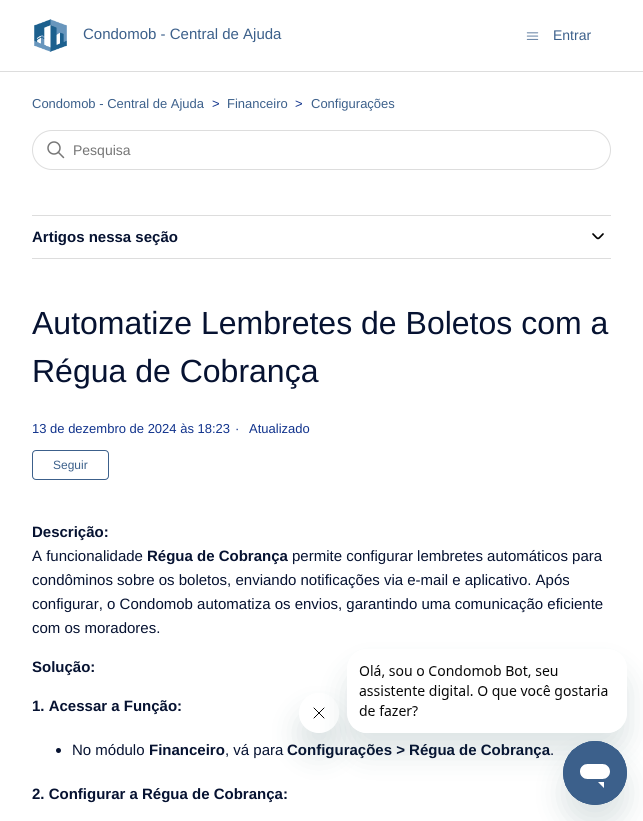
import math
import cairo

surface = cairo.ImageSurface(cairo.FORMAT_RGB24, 643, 821)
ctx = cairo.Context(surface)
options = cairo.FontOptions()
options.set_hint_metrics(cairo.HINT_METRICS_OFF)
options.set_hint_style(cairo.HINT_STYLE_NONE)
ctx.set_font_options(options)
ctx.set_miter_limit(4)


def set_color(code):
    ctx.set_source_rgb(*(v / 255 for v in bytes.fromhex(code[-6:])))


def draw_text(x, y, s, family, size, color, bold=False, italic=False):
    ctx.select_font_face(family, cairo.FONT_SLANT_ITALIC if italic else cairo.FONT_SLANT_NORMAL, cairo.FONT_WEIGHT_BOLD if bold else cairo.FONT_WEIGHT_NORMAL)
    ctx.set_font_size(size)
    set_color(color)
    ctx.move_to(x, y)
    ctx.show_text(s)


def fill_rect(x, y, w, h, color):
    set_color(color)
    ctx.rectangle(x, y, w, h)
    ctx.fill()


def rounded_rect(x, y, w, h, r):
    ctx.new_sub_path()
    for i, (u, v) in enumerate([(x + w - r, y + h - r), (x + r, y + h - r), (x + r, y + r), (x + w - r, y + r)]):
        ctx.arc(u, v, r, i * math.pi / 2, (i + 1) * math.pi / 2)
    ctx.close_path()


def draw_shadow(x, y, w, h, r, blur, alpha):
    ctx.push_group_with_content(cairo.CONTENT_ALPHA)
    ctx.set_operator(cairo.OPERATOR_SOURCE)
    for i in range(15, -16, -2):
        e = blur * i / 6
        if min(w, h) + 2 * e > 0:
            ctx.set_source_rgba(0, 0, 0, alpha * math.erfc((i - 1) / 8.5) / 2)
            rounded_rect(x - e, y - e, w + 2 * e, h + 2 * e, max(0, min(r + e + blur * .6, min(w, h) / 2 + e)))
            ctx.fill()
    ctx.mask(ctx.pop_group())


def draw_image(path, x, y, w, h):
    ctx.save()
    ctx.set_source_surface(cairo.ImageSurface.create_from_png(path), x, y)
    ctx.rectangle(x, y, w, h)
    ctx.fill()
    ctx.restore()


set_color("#ffffff")
ctx.paint()
draw_image("assets/img1.png", 34, 19, 33, 33)
draw_text(83, 39, "Condomob - Central de Ajuda", "Liberation Sans", 15, "#3c608b")
draw_image("assets/img2.png", 526, 32, 13, 8)
draw_text(553, 40, "Entrar", "Liberation Sans", 14, "#3c608b")
fill_rect(0, 71, 643, 1, "#dddddd")
draw_text(32, 108, "Condomob - Central de Ajuda", "Liberation Sans", 13, "#3c608b")
draw_text(212, 108, ">", "Liberation Sans", 13, "#11338c")
draw_text(227, 108, "Financeiro", "Liberation Sans", 13, "#3c608b")
draw_text(295, 108, ">", "Liberation Sans", 13, "#11338c")
draw_text(311, 108, "Configurações", "Liberation Sans", 13, "#3c608b")
rounded_rect(32.5, 130.5, 578, 39, 19.5)
set_color("#dddddd")
ctx.set_line_width(1)
ctx.stroke()
draw_image("assets/img3.png", 47, 141, 18, 18)
draw_text(73, 155, "Pesquisa", "Liberation Sans", 14, "#757575")
fill_rect(32, 215, 579, 1, "#dddddd")
fill_rect(32, 258, 579, 1, "#dddddd")
draw_text(32, 242, "Artigos nessa seção", "Liberation Sans", 15, "#061231", bold=True)
ctx.new_path()
ctx.move_to(593, 234)
ctx.curve_to(599, 240, 597, 240, 603, 234)
set_color("#000000")
ctx.set_line_width(1.7)
ctx.set_line_cap(cairo.LINE_CAP_ROUND)
ctx.stroke()
draw_text(32, 334, "Automatize Lembretes de Boletos com a", "Liberation Sans", 32, "#061231")
draw_text(32, 382, "Régua de Cobrança", "Liberation Sans", 32, "#061231")
draw_text(32, 433, "13 de dezembro de 2024 às 18:23", "Liberation Sans", 13, "#11338c")
draw_text(235, 433, "·", "Liberation Sans", 13, "#11338c")
draw_text(249, 433, "Atualizado", "Liberation Sans", 13, "#11338c")
rounded_rect(32.5, 450.5, 76, 29, 3.5)
set_color("#3c608b")
ctx.set_line_width(1)
ctx.set_line_cap(cairo.LINE_CAP_BUTT)
ctx.stroke()
draw_text(53, 469, "Seguir", "Liberation Sans", 12, "#3c608b")
draw_text(32, 537, "Descrição:", "Liberation Sans", 15, "#061231", bold=True)
draw_text(32, 561, "A funcionalidade", "Liberation Sans", 15, "#061231")
draw_text(147, 561, "Régua de Cobrança", "Liberation Sans", 15, "#061231", bold=True)
draw_text(292, 561, "permite configurar lembretes automáticos para", "Liberation Sans", 15, "#061231")
draw_text(32, 585, "condôminos sobre os boletos, enviando notificações via e-mail e aplicativo. Após", "Liberation Sans", 15, "#061231")
draw_text(32, 609, "configurar, o Condomob automatiza os envios, garantindo uma comunicação eficiente", "Liberation Sans", 15, "#061231")
draw_text(32, 633, "com os moradores.", "Liberation Sans", 15, "#061231")
draw_text(32, 672, "Solução:", "Liberation Sans", 15, "#061231", bold=True)
draw_text(32, 711, "1. Acessar a Função:", "Liberation Sans", 15, "#061231", bold=True)
ctx.new_path()
ctx.arc(58.5, 750.5, 2.5, 0, 2 * math.pi)
ctx.fill()
draw_text(72, 755, "No módulo", "Liberation Sans", 15, "#061231")
draw_text(149, 755, "Financeiro", "Liberation Sans", 15, "#061231", bold=True)
draw_text(225, 755, ", vá para", "Liberation Sans", 15, "#061231")
draw_text(287, 755, "Configurações > Régua de Cobrança", "Liberation Sans", 15, "#061231", bold=True)
draw_text(550, 755, ".", "Liberation Sans", 15, "#061231")
draw_text(32, 799, "2. Configurar a Régua de Cobrança:", "Liberation Sans", 15, "#061231", bold=True)
ctx.save()
ctx.set_fill_rule(cairo.FILL_RULE_EVEN_ODD)
ctx.new_path()
ctx.move_to(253, 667)
ctx.line_to(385, 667)
ctx.line_to(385, 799)
ctx.line_to(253, 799)
ctx.close_path()
ctx.move_to(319, 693)
ctx.curve_to(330, 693, 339, 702, 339, 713)
ctx.curve_to(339, 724, 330, 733, 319, 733)
ctx.curve_to(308, 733, 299, 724, 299, 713)
ctx.curve_to(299, 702, 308, 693, 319, 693)
ctx.close_path()
ctx.clip()
set_color("#17494d")
draw_shadow(299, 713, 40, 40, 20, 15, 0.15)
ctx.restore()
draw_image("assets/img5.png", 313, 707, 12, 12)
ctx.save()
ctx.set_fill_rule(cairo.FILL_RULE_EVEN_ODD)
ctx.new_path()
ctx.move_to(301, 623)
ctx.line_to(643, 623)
ctx.line_to(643, 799)
ctx.line_to(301, 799)
ctx.close_path()
ctx.move_to(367, 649)
ctx.line_to(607, 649)
ctx.curve_to(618, 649, 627, 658, 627, 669)
ctx.line_to(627, 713)
ctx.curve_to(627, 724, 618, 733, 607, 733)
ctx.line_to(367, 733)
ctx.curve_to(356, 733, 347, 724, 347, 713)
ctx.line_to(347, 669)
ctx.curve_to(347, 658, 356, 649, 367, 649)
ctx.close_path()
ctx.clip()
set_color("#17494d")
draw_shadow(347, 669, 280, 84, 20, 15, 0.15)
ctx.restore()
draw_image("assets/img4.png", 347, 665, 274, 68)
set_color("#17494d")
draw_shadow(563, 761, 64, 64, 32, 15, 0.15)
draw_image("assets/img6.png", 563, 741, 64, 64)
surface.write_to_png("output.png")
